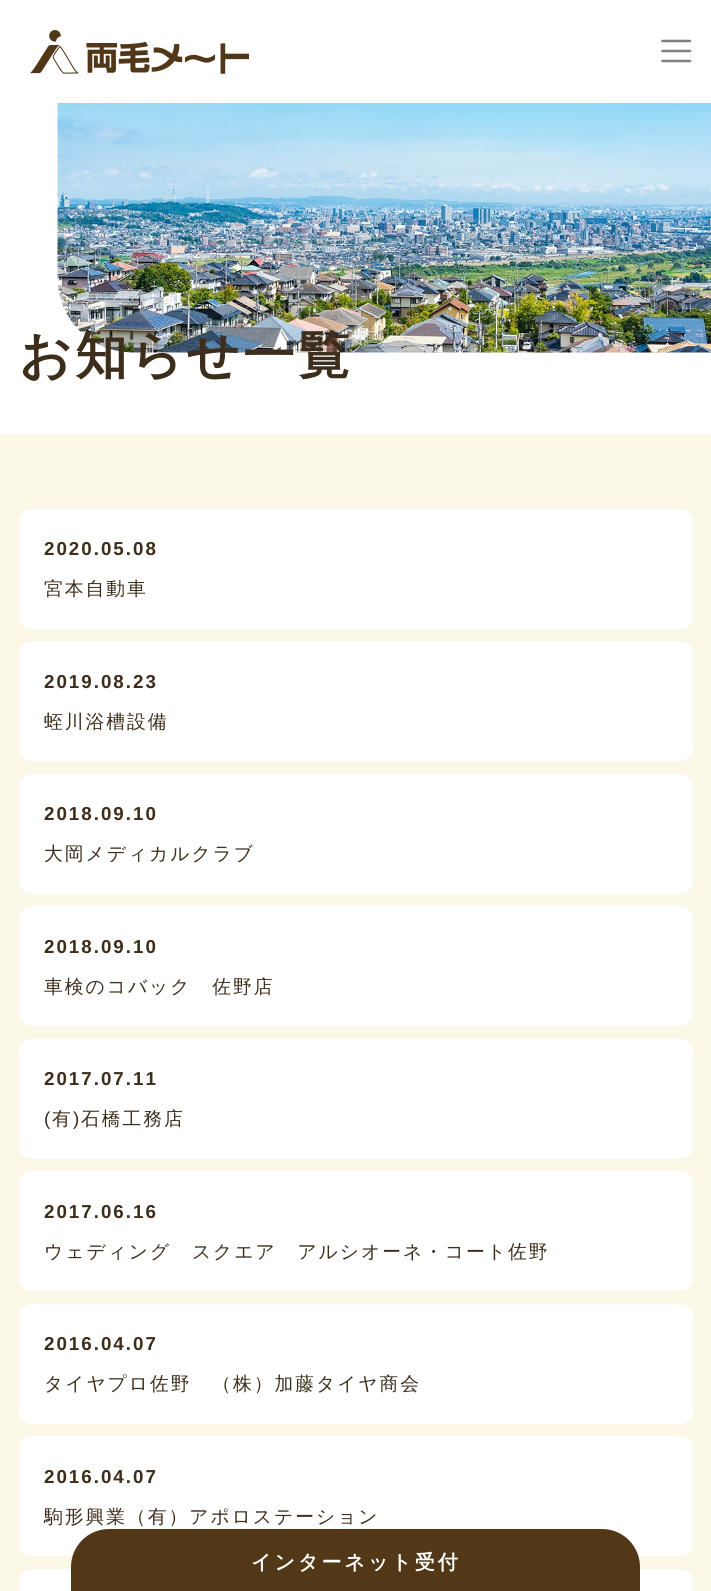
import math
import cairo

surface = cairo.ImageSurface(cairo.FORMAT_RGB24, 711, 1591)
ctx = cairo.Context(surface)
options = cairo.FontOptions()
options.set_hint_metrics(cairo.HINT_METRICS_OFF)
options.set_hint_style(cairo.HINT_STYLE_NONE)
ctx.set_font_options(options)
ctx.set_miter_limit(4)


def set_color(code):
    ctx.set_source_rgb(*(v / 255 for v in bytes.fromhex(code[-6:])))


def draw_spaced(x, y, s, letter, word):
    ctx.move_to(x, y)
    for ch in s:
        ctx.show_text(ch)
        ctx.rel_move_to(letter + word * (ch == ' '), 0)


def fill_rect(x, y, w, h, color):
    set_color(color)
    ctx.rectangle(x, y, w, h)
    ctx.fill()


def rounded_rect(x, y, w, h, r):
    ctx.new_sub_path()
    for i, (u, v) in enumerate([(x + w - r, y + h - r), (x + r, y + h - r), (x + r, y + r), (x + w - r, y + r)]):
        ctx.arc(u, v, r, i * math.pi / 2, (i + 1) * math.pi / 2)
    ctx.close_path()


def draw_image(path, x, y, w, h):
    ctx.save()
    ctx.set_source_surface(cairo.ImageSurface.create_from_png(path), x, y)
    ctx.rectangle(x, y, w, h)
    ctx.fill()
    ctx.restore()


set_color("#ffffff")
ctx.paint()
draw_image("assets/img1.png", 30, 30, 219, 44)
ctx.new_path()
ctx.move_to(662.5, 41)
ctx.line_to(690, 41)
ctx.move_to(662.5, 51)
ctx.line_to(690, 51)
ctx.move_to(662.5, 61)
ctx.line_to(690, 61)
set_color("#808080")
ctx.set_line_width(2.5)
ctx.set_line_cap(cairo.LINE_CAP_ROUND)
ctx.stroke()
draw_image("assets/img2.png", 57, 103, 654, 250)
ctx.select_font_face("WenQuanYi Zen Hei", cairo.FONT_SLANT_NORMAL, cairo.FONT_WEIGHT_BOLD)
ctx.set_font_size(52)
set_color("#3d2e1c")
draw_spaced(19, 373, "お知らせ一覧", 3, 0)
fill_rect(0, 434, 711, 1157, "#fbf8e8")
set_color("#ffffff")
rounded_rect(19, 509, 674, 120, 13)
ctx.fill()
ctx.select_font_face("Liberation Sans", cairo.FONT_SLANT_NORMAL, cairo.FONT_WEIGHT_BOLD)
ctx.set_font_size(18.75)
set_color("#3d2e1c")
draw_spaced(44, 555, "2020.05.08", 2, 0)
ctx.select_font_face("WenQuanYi Zen Hei Medium")
draw_spaced(44, 595, "宮本自動車", 2, 0)
set_color("#ffffff")
rounded_rect(19, 641, 674, 120, 13)
ctx.fill()
ctx.select_font_face("Liberation Sans", cairo.FONT_SLANT_NORMAL, cairo.FONT_WEIGHT_BOLD)
set_color("#3d2e1c")
draw_spaced(44, 688, "2019.08.23", 2, 0)
ctx.select_font_face("WenQuanYi Zen Hei Medium")
draw_spaced(44, 728, "蛭川浴槽設備", 2, 0)
set_color("#ffffff")
rounded_rect(19, 774, 674, 120, 13)
ctx.fill()
ctx.select_font_face("Liberation Sans", cairo.FONT_SLANT_NORMAL, cairo.FONT_WEIGHT_BOLD)
set_color("#3d2e1c")
draw_spaced(44, 820, "2018.09.10", 2, 0)
ctx.select_font_face("WenQuanYi Zen Hei Medium")
draw_spaced(44, 860, "大岡メディカルクラブ", 2, 0)
set_color("#ffffff")
rounded_rect(19, 906, 674, 120, 13)
ctx.fill()
ctx.select_font_face("Liberation Sans", cairo.FONT_SLANT_NORMAL, cairo.FONT_WEIGHT_BOLD)
set_color("#3d2e1c")
draw_spaced(44, 953, "2018.09.10", 2, 0)
ctx.select_font_face("WenQuanYi Zen Hei Medium")
draw_spaced(44, 993, "車検のコバック　佐野店", 2, 0)
set_color("#ffffff")
rounded_rect(19, 1039, 674, 120, 13)
ctx.fill()
ctx.select_font_face("Liberation Sans", cairo.FONT_SLANT_NORMAL, cairo.FONT_WEIGHT_BOLD)
set_color("#3d2e1c")
draw_spaced(44, 1085, "2017.07.11", 2, 0)
ctx.select_font_face("Liberation Sans")
draw_spaced(44, 1125, "(", 2, 0)
ctx.select_font_face("WenQuanYi Zen Hei Medium")
draw_spaced(52, 1125, "有", 2, 0)
ctx.select_font_face("Liberation Sans")
draw_spaced(73, 1125, ")", 2, 0)
ctx.select_font_face("WenQuanYi Zen Hei Medium")
draw_spaced(81, 1125, "石橋工務店", 2, 0)
set_color("#ffffff")
rounded_rect(19, 1171, 674, 120, 13)
ctx.fill()
ctx.select_font_face("Liberation Sans", cairo.FONT_SLANT_NORMAL, cairo.FONT_WEIGHT_BOLD)
set_color("#3d2e1c")
draw_spaced(44, 1218, "2017.06.16", 2, 0)
ctx.select_font_face("WenQuanYi Zen Hei Medium")
draw_spaced(44, 1258, "ウェディング　スクエア　アルシオーネ・コート佐野", 2, 0)
set_color("#ffffff")
rounded_rect(19, 1304, 674, 120, 13)
ctx.fill()
ctx.select_font_face("Liberation Sans", cairo.FONT_SLANT_NORMAL, cairo.FONT_WEIGHT_BOLD)
set_color("#3d2e1c")
draw_spaced(44, 1350, "2016.04.07", 2, 0)
ctx.select_font_face("WenQuanYi Zen Hei Medium")
draw_spaced(44, 1390, "タイヤプロ佐野　（株）加藤タイヤ商会", 2, 0)
set_color("#ffffff")
rounded_rect(19, 1436, 674, 120, 13)
ctx.fill()
ctx.select_font_face("Liberation Sans", cairo.FONT_SLANT_NORMAL, cairo.FONT_WEIGHT_BOLD)
set_color("#3d2e1c")
draw_spaced(44, 1483, "2016.04.07", 2, 0)
ctx.select_font_face("WenQuanYi Zen Hei Medium")
draw_spaced(44, 1523, "駒形興業（有）アポロステーション", 2, 0)
set_color("#ffffff")
rounded_rect(19, 1569, 674, 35, 13)
ctx.fill()
set_color("#523817")
ctx.new_path()
ctx.move_to(109, 1529)
ctx.line_to(602, 1529)
ctx.curve_to(623, 1529, 640, 1546, 640, 1567)
ctx.line_to(640, 1591)
ctx.line_to(71, 1591)
ctx.line_to(71, 1567)
ctx.curve_to(71, 1546, 88, 1529, 109, 1529)
ctx.close_path()
ctx.fill()
ctx.select_font_face("WenQuanYi Zen Hei", cairo.FONT_SLANT_NORMAL, cairo.FONT_WEIGHT_BOLD)
ctx.set_font_size(20)
set_color("#ffffff")
draw_spaced(251, 1569, "インターネット受付", 3, 0)
surface.write_to_png("output.png")
